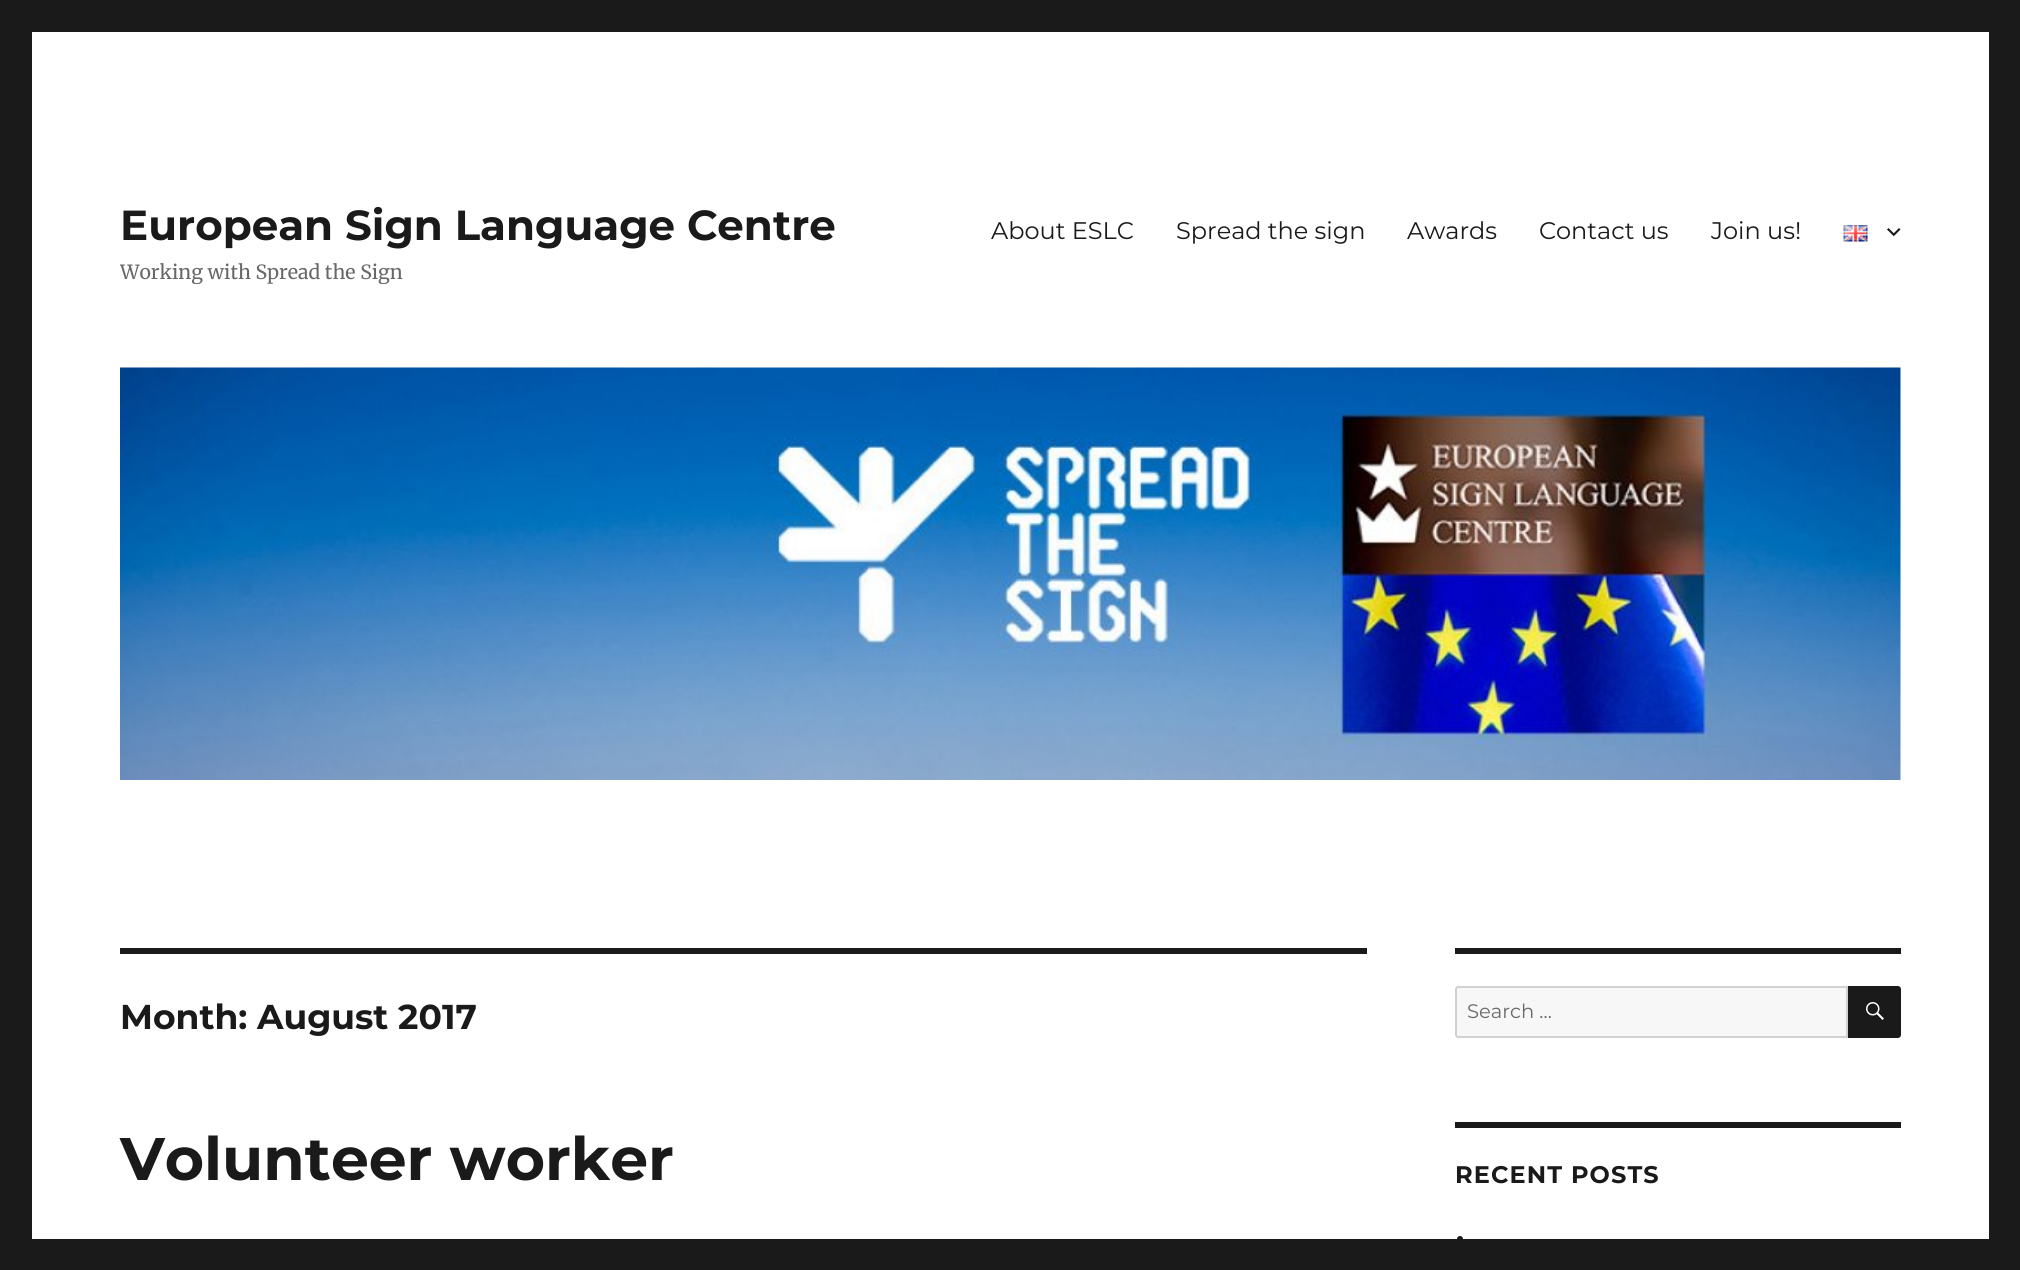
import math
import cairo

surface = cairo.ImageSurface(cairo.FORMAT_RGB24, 2020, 1270)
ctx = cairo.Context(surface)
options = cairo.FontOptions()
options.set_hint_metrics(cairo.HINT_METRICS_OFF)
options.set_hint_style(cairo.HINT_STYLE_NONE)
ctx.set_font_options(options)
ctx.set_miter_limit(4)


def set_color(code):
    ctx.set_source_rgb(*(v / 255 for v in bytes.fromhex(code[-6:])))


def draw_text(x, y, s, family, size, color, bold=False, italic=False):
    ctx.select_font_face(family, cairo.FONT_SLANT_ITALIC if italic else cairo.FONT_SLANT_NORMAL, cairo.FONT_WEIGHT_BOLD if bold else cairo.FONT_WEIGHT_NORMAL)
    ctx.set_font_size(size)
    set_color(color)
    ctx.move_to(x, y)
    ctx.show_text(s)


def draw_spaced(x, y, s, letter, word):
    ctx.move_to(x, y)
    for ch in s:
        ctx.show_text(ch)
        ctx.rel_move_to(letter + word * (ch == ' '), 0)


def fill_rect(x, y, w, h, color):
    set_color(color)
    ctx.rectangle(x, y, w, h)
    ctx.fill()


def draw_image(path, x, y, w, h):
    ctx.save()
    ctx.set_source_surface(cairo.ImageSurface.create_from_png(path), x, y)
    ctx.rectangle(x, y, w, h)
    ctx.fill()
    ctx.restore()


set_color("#1a1a1a")
ctx.paint()
fill_rect(32, 32, 1957, 1207, "#ffffff")
draw_text(120, 240, "European Sign Language Centre", "Montserrat", 42, "#1a1a1a", bold=True)
ctx.save()
ctx.rectangle(120, 200, 717, 84)
ctx.clip()
draw_text(120, 279, "Working with Spread the Sign", "Merriweather", 19.5, "#686868")
ctx.restore()
draw_text(991, 239, "About ESLC", "Montserrat", 24, "#1a1a1a")
draw_text(1176, 239, "Spread the sign", "Montserrat", 24, "#1a1a1a")
draw_text(1407, 239, "Awards", "Montserrat", 24, "#1a1a1a")
draw_text(1539, 239, "Contact us", "Montserrat", 24, "#1a1a1a")
draw_text(1711, 239, "Join us!", "Montserrat", 24, "#1a1a1a")
draw_image("assets/img1.png", 1843, 225, 25, 17)
draw_image("assets/img2.png", 1887, 228, 14, 9)
draw_image("assets/img3.png", 120, 367, 1781, 413)
fill_rect(120, 948, 1247, 6, "#1a1a1a")
draw_text(120, 1029, "Month: August 2017", "Montserrat", 34.5, "#1a1a1a", bold=True)
draw_text(120, 1180, "Volunteer worker", "Montserrat", 60, "#1a1a1a", bold=True)
fill_rect(1455, 948, 446, 6, "#1a1a1a")
set_color("#f7f7f7")
ctx.new_path()
ctx.move_to(1458, 987)
ctx.line_to(1847, 987)
ctx.line_to(1847, 1037)
ctx.line_to(1458, 1037)
ctx.curve_to(1457, 1037, 1456, 1036, 1456, 1035)
ctx.line_to(1456, 989)
ctx.curve_to(1456, 988, 1457, 987, 1458, 987)
ctx.close_path()
ctx.fill_preserve()
set_color("#d1d1d1")
ctx.stroke()
draw_text(1467, 1018, "Search …", "Montserrat", 19.5, "#686868")
set_color("#1a1a1a")
ctx.new_path()
ctx.move_to(1848, 986)
ctx.line_to(1898, 986)
ctx.curve_to(1899.5, 986, 1901, 987.5, 1901, 989)
ctx.line_to(1901, 1035)
ctx.curve_to(1901, 1036.5, 1899.5, 1038, 1898, 1038)
ctx.line_to(1848, 1038)
ctx.close_path()
ctx.fill()
draw_image("assets/img4.png", 1866, 1002, 18, 18)
fill_rect(1455, 1122, 446, 6, "#1a1a1a")
ctx.select_font_face("Montserrat", cairo.FONT_SLANT_NORMAL, cairo.FONT_WEIGHT_BOLD)
ctx.set_font_size(24)
draw_spaced(1455, 1183, "RECENT POSTS", 1.1, 0)
ctx.new_path()
ctx.arc(1460, 1239, 3, 0, 2 * math.pi)
ctx.fill()
surface.write_to_png("output.png")
